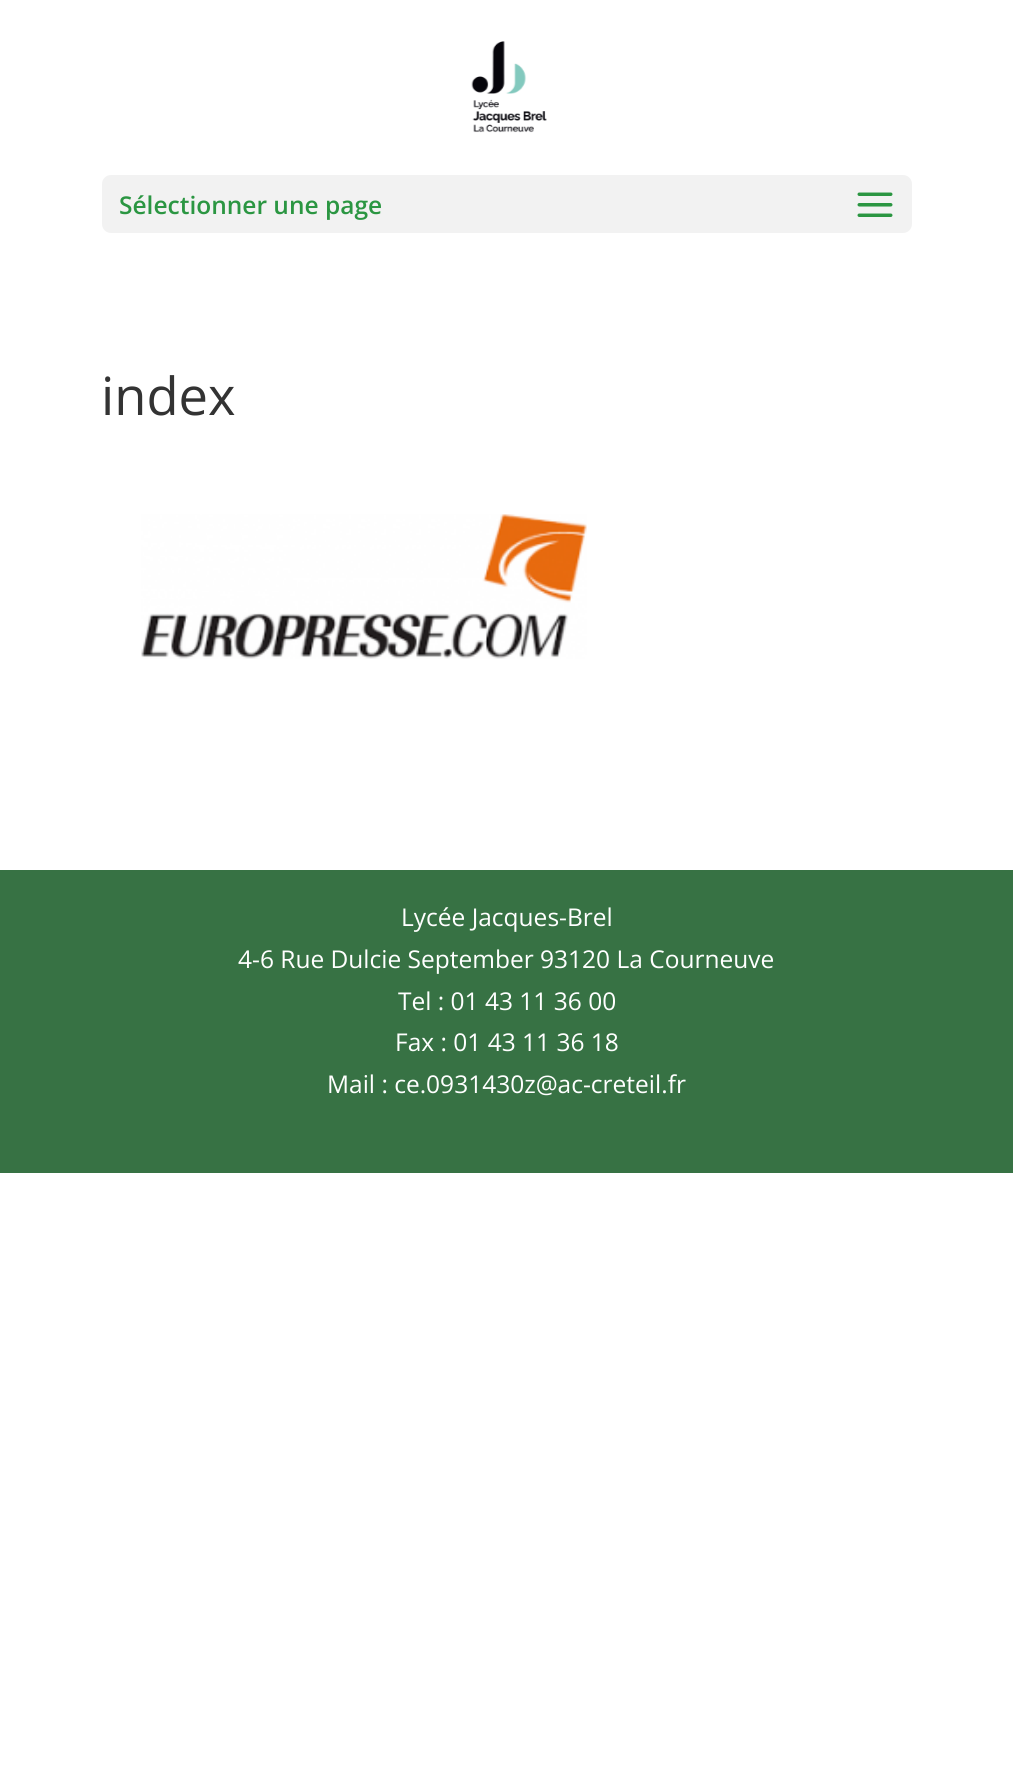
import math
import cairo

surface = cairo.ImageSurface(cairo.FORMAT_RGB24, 1013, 1785)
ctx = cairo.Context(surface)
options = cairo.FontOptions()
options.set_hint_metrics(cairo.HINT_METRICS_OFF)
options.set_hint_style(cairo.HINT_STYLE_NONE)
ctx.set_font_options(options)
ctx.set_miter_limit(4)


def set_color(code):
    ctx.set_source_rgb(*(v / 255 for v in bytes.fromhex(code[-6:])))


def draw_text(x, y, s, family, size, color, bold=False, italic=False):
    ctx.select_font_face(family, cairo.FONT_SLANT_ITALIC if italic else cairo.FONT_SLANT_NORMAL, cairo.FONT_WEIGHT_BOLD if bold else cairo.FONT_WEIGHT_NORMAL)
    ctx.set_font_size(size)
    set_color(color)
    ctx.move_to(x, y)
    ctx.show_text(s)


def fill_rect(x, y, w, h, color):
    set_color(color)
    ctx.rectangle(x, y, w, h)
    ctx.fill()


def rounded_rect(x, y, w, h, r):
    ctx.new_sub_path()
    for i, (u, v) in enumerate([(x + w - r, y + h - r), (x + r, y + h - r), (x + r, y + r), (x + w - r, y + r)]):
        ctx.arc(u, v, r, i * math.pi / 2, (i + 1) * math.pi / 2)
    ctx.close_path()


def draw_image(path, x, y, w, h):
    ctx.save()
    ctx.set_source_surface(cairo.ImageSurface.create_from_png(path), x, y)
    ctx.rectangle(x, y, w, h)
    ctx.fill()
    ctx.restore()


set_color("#ffffff")
ctx.paint()
draw_image("assets/img1.png", 471, 41, 76, 92)
set_color("#f2f2f2")
rounded_rect(102, 175, 810, 58, 9)
ctx.fill()
draw_text(119, 214, "Sélectionner une page", "Open Sans SemiBold", 24.5, "#2b9642")
draw_image("assets/img2.png", 857, 192, 36, 25)
draw_text(101, 415, "index", "Open Sans", 52.5, "#333333")
draw_image("assets/img3.png", 141, 514, 446, 145)
fill_rect(0, 870, 1013, 303, "#377244")
draw_text(401, 926, "Lycée Jacques-Brel", "Open Sans", 24.5, "#ffffff")
draw_text(238, 968, "4-6 Rue Dulcie September 93120 La Courneuve", "Open Sans", 24.5, "#ffffff")
draw_text(398, 1010, "Tel : 01 43 11 36 00", "Open Sans", 24.5, "#ffffff")
draw_text(395, 1051, "Fax : 01 43 11 36 18", "Open Sans", 24.5, "#ffffff")
draw_text(327, 1093, "Mail : ce.0931430z@ac-creteil.fr", "Open Sans", 24.5, "#ffffff")
surface.write_to_png("output.png")
